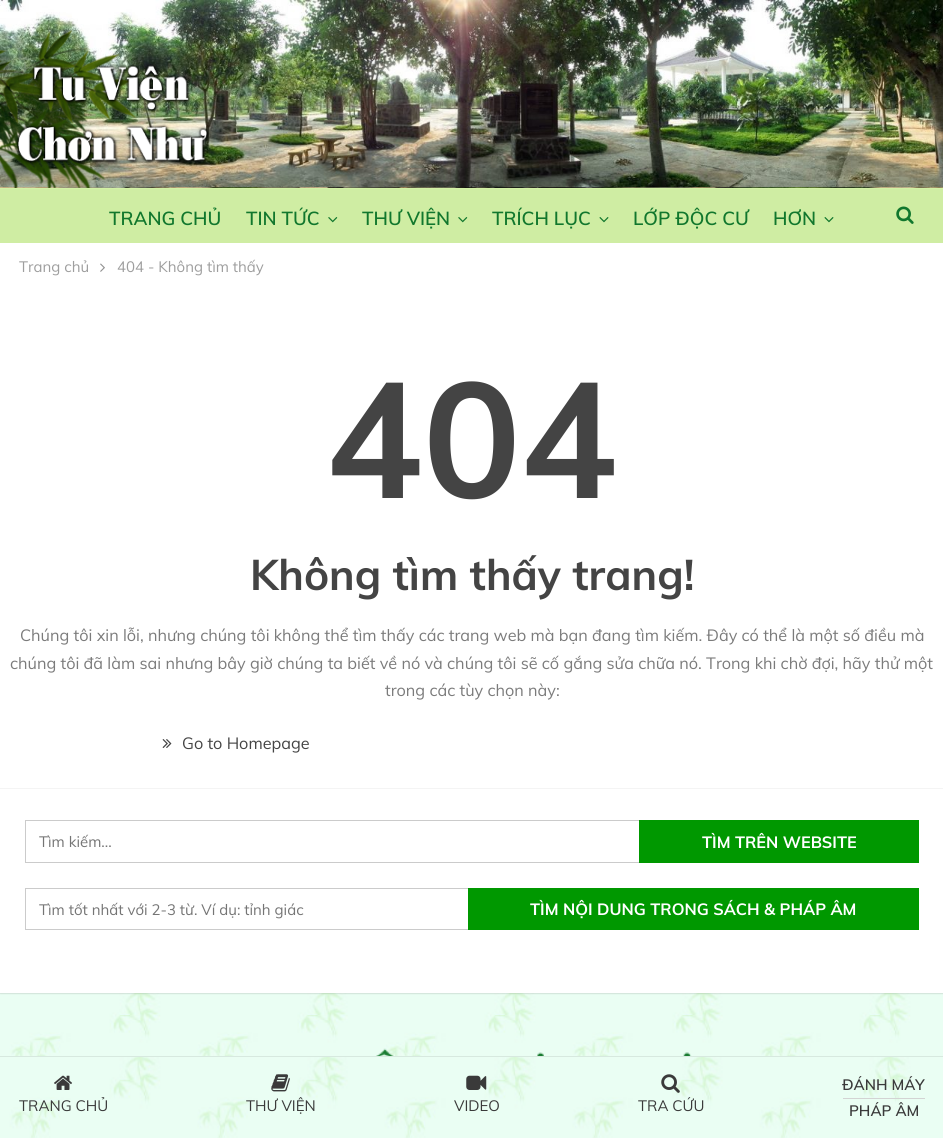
import math
import cairo

surface = cairo.ImageSurface(cairo.FORMAT_RGB24, 943, 1138)
ctx = cairo.Context(surface)
options = cairo.FontOptions()
options.set_hint_metrics(cairo.HINT_METRICS_OFF)
options.set_hint_style(cairo.HINT_STYLE_NONE)
ctx.set_font_options(options)
ctx.set_miter_limit(4)


def set_color(code):
    ctx.set_source_rgb(*(v / 255 for v in bytes.fromhex(code[-6:])))


def draw_text(x, y, s, family, size, color, bold=False, italic=False):
    ctx.select_font_face(family, cairo.FONT_SLANT_ITALIC if italic else cairo.FONT_SLANT_NORMAL, cairo.FONT_WEIGHT_BOLD if bold else cairo.FONT_WEIGHT_NORMAL)
    ctx.set_font_size(size)
    set_color(color)
    ctx.move_to(x, y)
    ctx.show_text(s)


def fill_rect(x, y, w, h, color):
    set_color(color)
    ctx.rectangle(x, y, w, h)
    ctx.fill()


def rounded_rect(x, y, w, h, r):
    ctx.new_sub_path()
    for i, (u, v) in enumerate([(x + w - r, y + h - r), (x + r, y + h - r), (x + r, y + r), (x + w - r, y + r)]):
        ctx.arc(u, v, r, i * math.pi / 2, (i + 1) * math.pi / 2)
    ctx.close_path()


def draw_shadow(x, y, w, h, r, blur, alpha):
    ctx.push_group_with_content(cairo.CONTENT_ALPHA)
    ctx.set_operator(cairo.OPERATOR_SOURCE)
    for i in range(15, -16, -2):
        e = blur * i / 6
        if min(w, h) + 2 * e > 0:
            ctx.set_source_rgba(0, 0, 0, alpha * math.erfc((i - 1) / 8.5) / 2)
            rounded_rect(x - e, y - e, w + 2 * e, h + 2 * e, max(0, min(r + e + blur * .6, min(w, h) / 2 + e)))
            ctx.fill()
    ctx.mask(ctx.pop_group())


def draw_image(path, x, y, w, h):
    ctx.save()
    ctx.set_source_surface(cairo.ImageSurface.create_from_png(path), x, y)
    ctx.rectangle(x, y, w, h)
    ctx.fill()
    ctx.restore()


set_color("#ffffff")
ctx.paint()
draw_image("assets/img9.png", 0, 993, 943, 63)
set_color("#000000")
draw_shadow(0, 0, 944, 993, 0, 1, 0.27)
fill_rect(0, 243, 943, 750, "#ffffff")
draw_image("assets/img1.png", 0, 187, 943, 1)
draw_image("assets/img2.png", 0, 0, 943, 188)
draw_image("assets/img3.png", 0, 29, 211, 159)
fill_rect(0, 189, 943, 54, "#cfeda3")
fill_rect(0, 188, 943, 1, "#d3f1a6")
draw_text(109, 225, "TRANG CHỦ", "Muli SemiBold", 18.75, "#11772d")
draw_text(246, 225, "TIN TỨC", "Muli SemiBold", 18.75, "#11772d")
draw_image("assets/img4.png", 328, 217, 10, 6)
draw_text(362, 225, "THƯ VIỆN", "Muli SemiBold", 18.75, "#11772d")
draw_image("assets/img4.png", 458, 217, 10, 6)
draw_text(492, 225, "TRÍCH LỤC", "Muli SemiBold", 18.75, "#11772d")
draw_image("assets/img5.png", 599, 217, 10, 6)
draw_text(633, 225, "LỚP ĐỘC CƯ", "Muli SemiBold", 18.75, "#11772d")
draw_text(773, 225, "HƠN", "Muli SemiBold", 18.75, "#11772d")
draw_image("assets/img5.png", 824, 217, 10, 6)
draw_image("assets/img6.png", 896, 206, 18, 18)
draw_text(19, 272, "Trang chủ", "Muli", 15, "#9e9e9e")
draw_image("assets/img7.png", 100, 263, 5, 9)
draw_text(117, 272, "404 - Không tìm thấy", "Muli", 15, "#9e9e9e")
draw_text(326, 498, "404", "Muli", 162, "#444444", bold=True)
draw_text(250, 590, "Không tìm thấy trang!", "Muli", 42.5, "#444444", bold=True)
draw_text(20, 641, "Chúng tôi xin lỗi, nhưng chúng tôi không thể tìm thấy các trang web mà bạn đang tìm kiếm. Đây có thể là một số điều mà", "Muli", 16.25, "#7b7b7b")
draw_text(10, 669, "chúng tôi đã làm sai nhưng bây giờ chúng ta biết về nó và chúng tôi sẽ cố gắng sửa chữa nó. Trong khi chờ đợi, hãy thử một", "Muli", 16.25, "#7b7b7b")
draw_text(385, 696, "trong các tùy chọn này:", "Muli", 16.25, "#7b7b7b")
draw_image("assets/img8.png", 162, 739, 10, 9)
draw_text(182, 749, "Go to Homepage", "Muli", 16.25, "#444444")
fill_rect(0, 788, 943, 1, "#f4f4f4")
ctx.rectangle(25.5, 820.5, 893, 42)
set_color("#cbcbcb")
ctx.set_line_width(1)
ctx.stroke()
draw_text(39, 847, "Tìm kiếm...", "Muli", 15, "#757575")
fill_rect(639, 820, 280, 43, "#009800")
draw_text(702, 848, "TÌM TRÊN WEBSITE", "Muli", 16.25, "#ffffff", bold=True)
ctx.rectangle(25.5, 888.5, 893, 41)
set_color("#cbcbcb")
ctx.stroke()
draw_text(39, 915, "Tìm tốt nhất với 2-3 từ. Ví dụ: tỉnh giác", "Muli", 15, "#757575")
fill_rect(468, 888, 451, 42, "#009800")
draw_text(530, 915, "TÌM NỘI DUNG TRONG SÁCH & PHÁP ÂM", "Muli", 16.25, "#ffffff", bold=True)
draw_image("assets/img10.png", 376, 1048, 316, 8)
draw_image("assets/img11.png", 0, 1057, 943, 81)
fill_rect(0, 1056, 943, 1, "#d7e9df")
draw_image("assets/img12.png", 54, 1075, 18, 15)
draw_text(19, 1111, "TRANG CHỦ", "Muli", 15, "#3a3a3a")
draw_image("assets/img13.png", 271, 1074, 19, 18)
draw_text(246, 1111, "THƯ VIỆN", "Muli", 15, "#3a3a3a")
draw_image("assets/img14.png", 466, 1075, 21, 15)
draw_text(454, 1111, "VIDEO", "Muli", 15, "#3a3a3a")
draw_image("assets/img15.png", 661, 1074, 19, 19)
draw_text(638, 1111, "TRA CỨU", "Muli", 15, "#3a3a3a")
fill_rect(843, 1098, 82, 1, "#d3d3d3")
draw_text(842, 1090, "ĐÁNH MÁY", "Muli SemiBold", 15, "#3a3a3a")
draw_text(849, 1116, "PHÁP ÂM", "Muli SemiBold", 15, "#3a3a3a")
surface.write_to_png("output.png")
